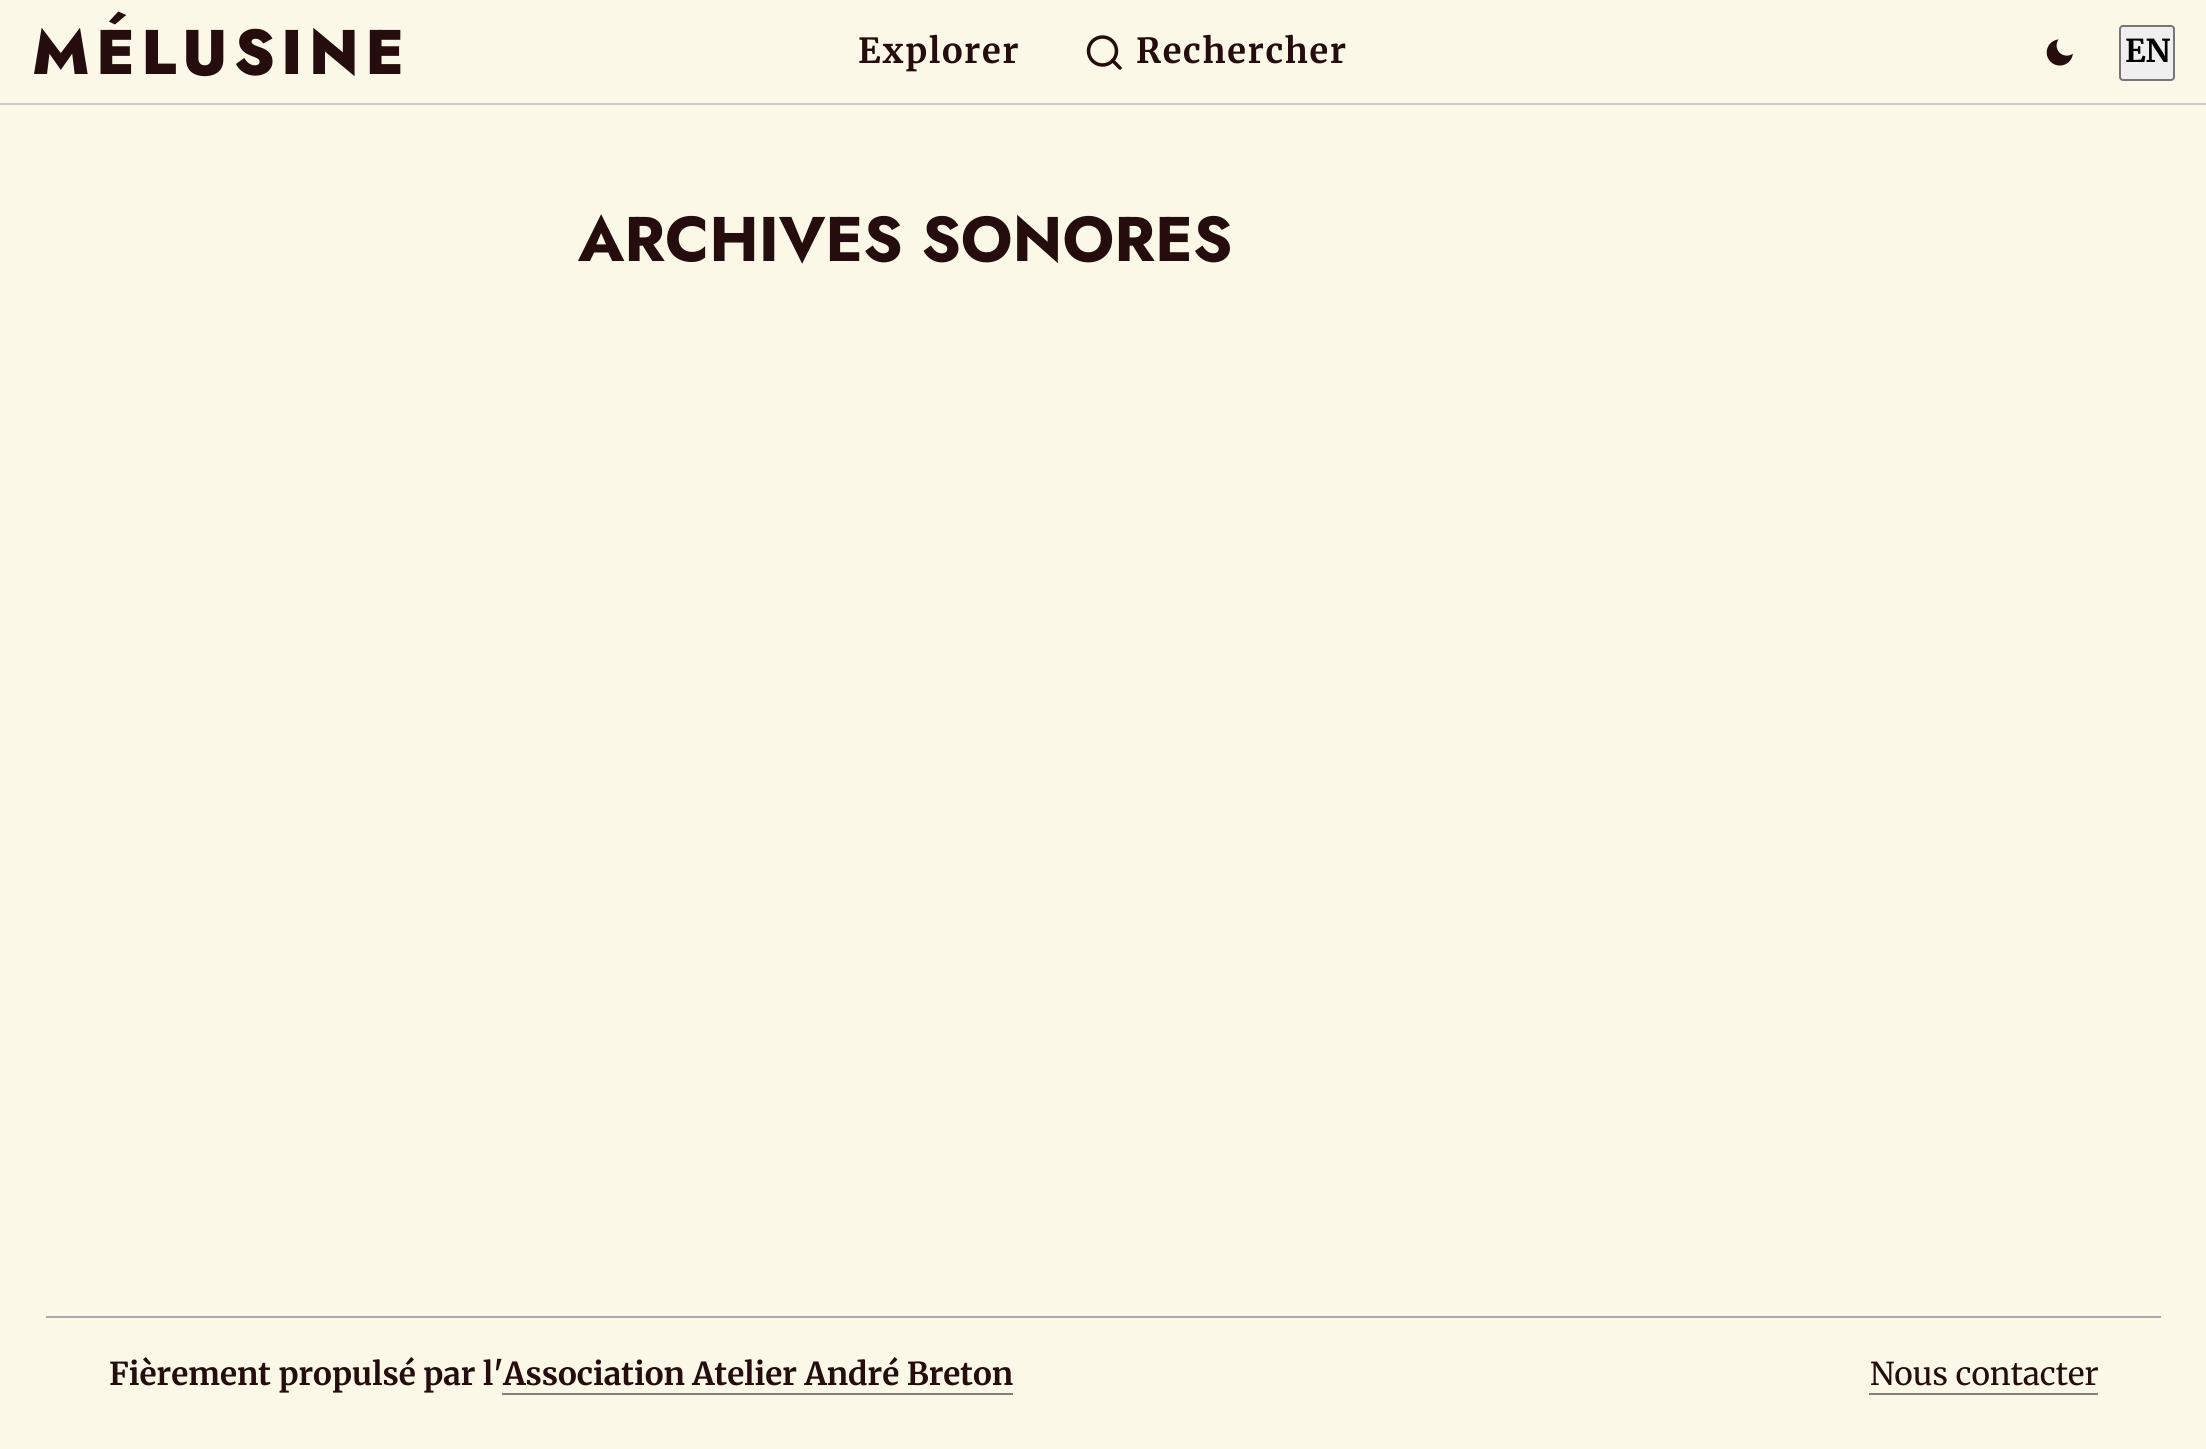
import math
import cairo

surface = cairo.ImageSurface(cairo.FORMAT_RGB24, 2206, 1449)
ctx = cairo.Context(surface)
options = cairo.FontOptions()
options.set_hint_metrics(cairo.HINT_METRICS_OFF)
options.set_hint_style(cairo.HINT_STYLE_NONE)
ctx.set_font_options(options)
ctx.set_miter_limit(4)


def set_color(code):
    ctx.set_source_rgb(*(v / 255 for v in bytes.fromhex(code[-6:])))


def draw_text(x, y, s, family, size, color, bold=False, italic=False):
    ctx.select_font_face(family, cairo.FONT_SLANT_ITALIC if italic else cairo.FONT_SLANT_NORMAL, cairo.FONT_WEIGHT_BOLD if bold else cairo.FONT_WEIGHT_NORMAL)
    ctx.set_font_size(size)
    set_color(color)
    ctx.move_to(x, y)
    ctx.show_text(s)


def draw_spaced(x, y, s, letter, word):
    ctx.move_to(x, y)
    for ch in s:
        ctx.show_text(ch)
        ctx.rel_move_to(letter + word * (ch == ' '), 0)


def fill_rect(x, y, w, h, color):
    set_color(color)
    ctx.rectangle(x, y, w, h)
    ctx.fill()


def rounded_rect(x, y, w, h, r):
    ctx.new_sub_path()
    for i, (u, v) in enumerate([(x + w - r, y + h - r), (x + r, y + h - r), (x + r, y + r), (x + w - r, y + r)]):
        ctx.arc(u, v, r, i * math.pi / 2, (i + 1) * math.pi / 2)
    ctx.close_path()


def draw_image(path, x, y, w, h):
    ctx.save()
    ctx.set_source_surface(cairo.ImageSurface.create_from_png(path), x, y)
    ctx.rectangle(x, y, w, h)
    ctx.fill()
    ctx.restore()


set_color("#fbf8e7")
ctx.paint()
fill_rect(0, 103, 2206, 2, "#cccccc")
ctx.select_font_face("Jost ExtraBold")
ctx.set_font_size(63)
set_color("#260d0d")
draw_spaced(32, 74, "MÉLUSINE", 6.25, 0)
ctx.select_font_face("Merriweather", cairo.FONT_SLANT_NORMAL, cairo.FONT_WEIGHT_BOLD)
ctx.set_font_size(34.5)
draw_spaced(858, 63, "Explorer", 1.75, 0)
ctx.new_path()
ctx.arc(1102.5, 51, 14, 0, 2 * math.pi)
ctx.set_line_width(3.5)
ctx.stroke()
ctx.new_path()
ctx.move_to(1120, 68)
ctx.line_to(1112.5, 60.5)
ctx.set_line_cap(cairo.LINE_CAP_ROUND)
ctx.set_line_join(cairo.LINE_JOIN_ROUND)
ctx.stroke()
draw_spaced(1136, 63, "Rechercher", 1.75, 0)
draw_image("assets/img1.png", 2046, 39, 27, 27)
set_color("#efefef")
rounded_rect(2120, 26, 54, 54, 3)
ctx.fill_preserve()
set_color("#767676")
ctx.set_line_width(2)
ctx.set_line_cap(cairo.LINE_CAP_BUTT)
ctx.set_line_join(cairo.LINE_JOIN_MITER)
ctx.stroke()
draw_text(2125, 62, "EN", "Merriweather", 31.5, "#000000", bold=True)
draw_text(578, 261, "ARCHIVES SONORES", "Jost", 63, "#260d0d", bold=True)
fill_rect(46, 1316, 2115, 2, "#a9a9a9")
draw_text(109, 1385, "Fièrement propulsé par l'Association Atelier André Breton", "Merriweather", 31.5, "#260d0d", bold=True)
fill_rect(502, 1393, 511, 2, "#808080")
draw_text(1870, 1385, "Nous contacter", "Merriweather", 31.5, "#260d0d")
fill_rect(1869, 1393, 229, 2, "#808080")
surface.write_to_png("output.png")
